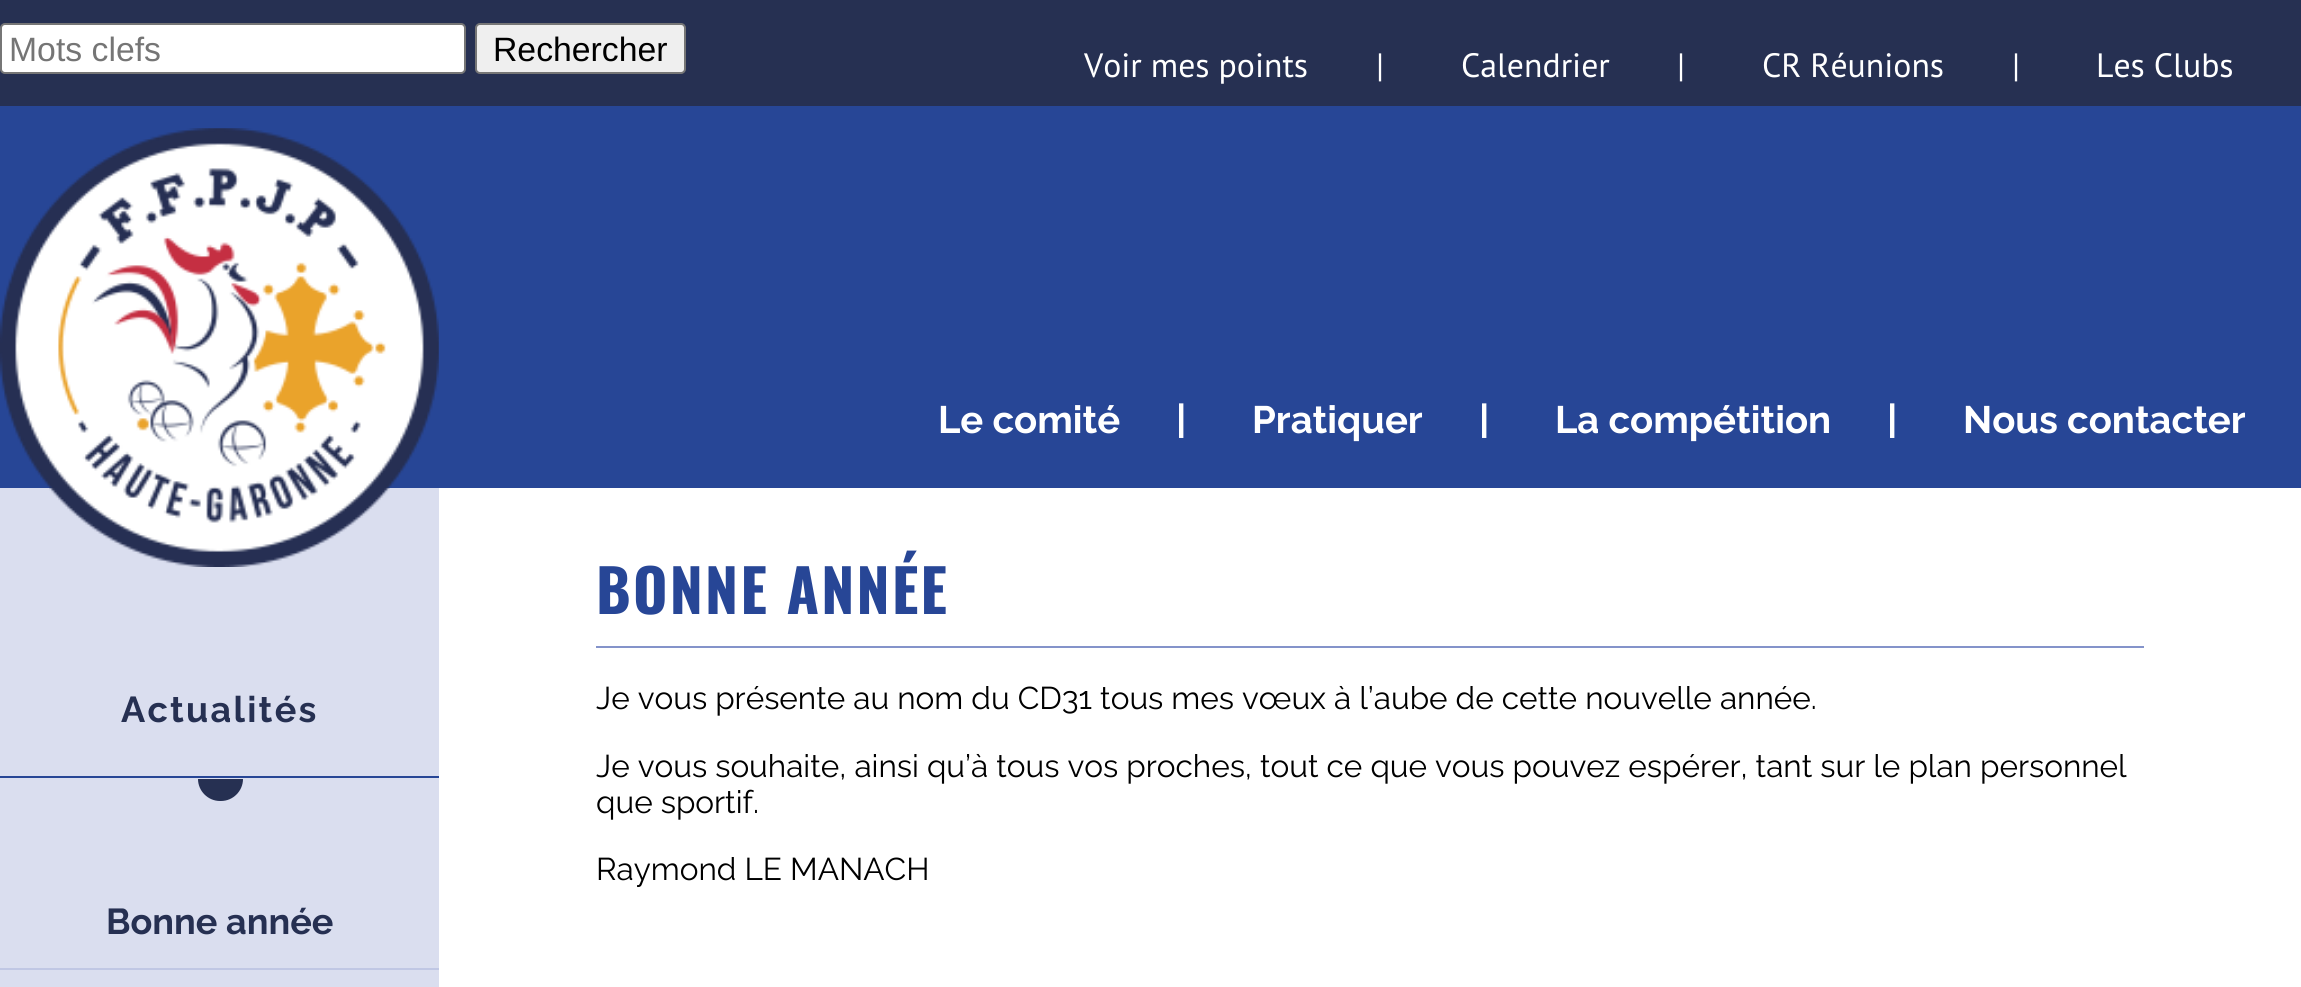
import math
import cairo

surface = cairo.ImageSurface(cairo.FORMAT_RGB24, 2301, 987)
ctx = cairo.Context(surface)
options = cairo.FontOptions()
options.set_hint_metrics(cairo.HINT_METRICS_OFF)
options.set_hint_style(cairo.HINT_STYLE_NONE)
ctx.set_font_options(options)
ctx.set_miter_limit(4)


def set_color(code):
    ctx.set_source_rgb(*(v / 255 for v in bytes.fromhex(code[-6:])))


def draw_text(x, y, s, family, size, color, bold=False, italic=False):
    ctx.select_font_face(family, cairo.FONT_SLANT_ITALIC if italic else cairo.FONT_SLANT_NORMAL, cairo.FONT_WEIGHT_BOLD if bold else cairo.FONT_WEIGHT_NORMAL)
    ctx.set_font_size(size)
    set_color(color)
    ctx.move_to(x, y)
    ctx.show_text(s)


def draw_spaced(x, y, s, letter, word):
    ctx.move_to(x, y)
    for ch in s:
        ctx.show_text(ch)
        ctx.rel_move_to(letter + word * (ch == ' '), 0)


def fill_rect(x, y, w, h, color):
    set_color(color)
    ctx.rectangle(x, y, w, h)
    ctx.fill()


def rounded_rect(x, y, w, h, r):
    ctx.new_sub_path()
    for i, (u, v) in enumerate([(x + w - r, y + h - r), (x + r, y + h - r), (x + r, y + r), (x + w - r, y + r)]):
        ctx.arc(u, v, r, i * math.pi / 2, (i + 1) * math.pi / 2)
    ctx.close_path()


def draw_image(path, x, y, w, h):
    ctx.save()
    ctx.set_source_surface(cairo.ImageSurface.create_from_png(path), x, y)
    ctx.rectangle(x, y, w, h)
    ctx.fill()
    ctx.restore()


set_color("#ffffff")
ctx.paint()
fill_rect(0, 0, 2301, 106, "#263052")
set_color("#ffffff")
rounded_rect(1, 24, 464, 49, 4)
ctx.fill_preserve()
set_color("#767676")
ctx.stroke()
draw_text(9, 61, "Mots clefs", "Liberation Sans", 33.75, "#757575")
set_color("#efefef")
rounded_rect(476, 24, 209, 49, 4)
ctx.fill_preserve()
set_color("#767676")
ctx.stroke()
draw_text(493, 61, "Rechercher", "Liberation Sans", 33.75, "#000000")
draw_text(1084, 77, "Voir mes points", "PT Sans", 33.75, "#ffffff")
draw_text(1376, 77, "|", "PT Sans", 33.75, "#ffffff")
draw_text(1461, 77, "Calendrier", "PT Sans", 33.75, "#ffffff")
draw_text(1677, 77, "|", "PT Sans", 33.75, "#ffffff")
draw_text(1762, 77, "CR Réunions", "PT Sans", 33.75, "#ffffff")
draw_text(2012, 77, "|", "PT Sans", 33.75, "#ffffff")
draw_text(2096, 77, "Les Clubs", "PT Sans", 33.75, "#ffffff")
fill_rect(0, 106, 2301, 382, "#274696")
fill_rect(0, 488, 439, 499, "#dadeef")
draw_image("assets/img1.png", 0, 128, 439, 439)
draw_text(938, 433, "Le comité", "Raleway", 38.25, "#ffffff", bold=True)
draw_text(1176, 433, "|", "Raleway", 38.25, "#ffffff", bold=True)
draw_text(1252, 433, "Pratiquer", "Raleway", 38.25, "#ffffff", bold=True)
draw_text(1479, 433, "|", "Raleway", 38.25, "#ffffff", bold=True)
draw_text(1555, 433, "La compétition", "Raleway", 38.25, "#ffffff", bold=True)
draw_text(1887, 433, "|", "Raleway", 38.25, "#ffffff", bold=True)
draw_text(1963, 433, "Nous contacter", "Raleway", 38.25, "#ffffff", bold=True)
fill_rect(0, 776, 439, 2, "#274696")
ctx.set_font_size(36)
set_color("#263052")
draw_spaced(121, 722, "Actualités", 2.25, 0)
ctx.new_path()
ctx.move_to(198, 779)
ctx.line_to(243, 779)
ctx.curve_to(243, 791, 233, 801, 221, 801)
ctx.line_to(220, 801)
ctx.curve_to(208, 801, 198, 791, 198, 779)
ctx.close_path()
ctx.fill()
fill_rect(0, 968, 439, 2, "#c0c7e4")
draw_text(106, 934, "Bonne année", "Raleway", 36, "#263052", bold=True)
fill_rect(596, 646, 1548, 2, "#8493ca")
ctx.select_font_face("Oswald", cairo.FONT_SLANT_NORMAL, cairo.FONT_WEIGHT_BOLD)
ctx.set_font_size(59)
set_color("#274696")
draw_spaced(596, 614, "BONNE ANNÉE", 2.25, 0)
draw_text(596, 709, "Je vous présente au nom du CD31 tous mes vœux à l’aube de cette nouvelle année.", "Raleway", 31.5, "#000000")
draw_text(596, 777, "Je vous souhaite, ainsi qu’à tous vos proches, tout ce que vous pouvez espérer, tant sur le plan personnel", "Raleway", 31.5, "#000000")
draw_text(596, 813, "que sportif.", "Raleway", 31.5, "#000000")
draw_text(596, 880, "Raymond LE MANACH", "Raleway", 31.5, "#000000")
surface.write_to_png("output.png")
